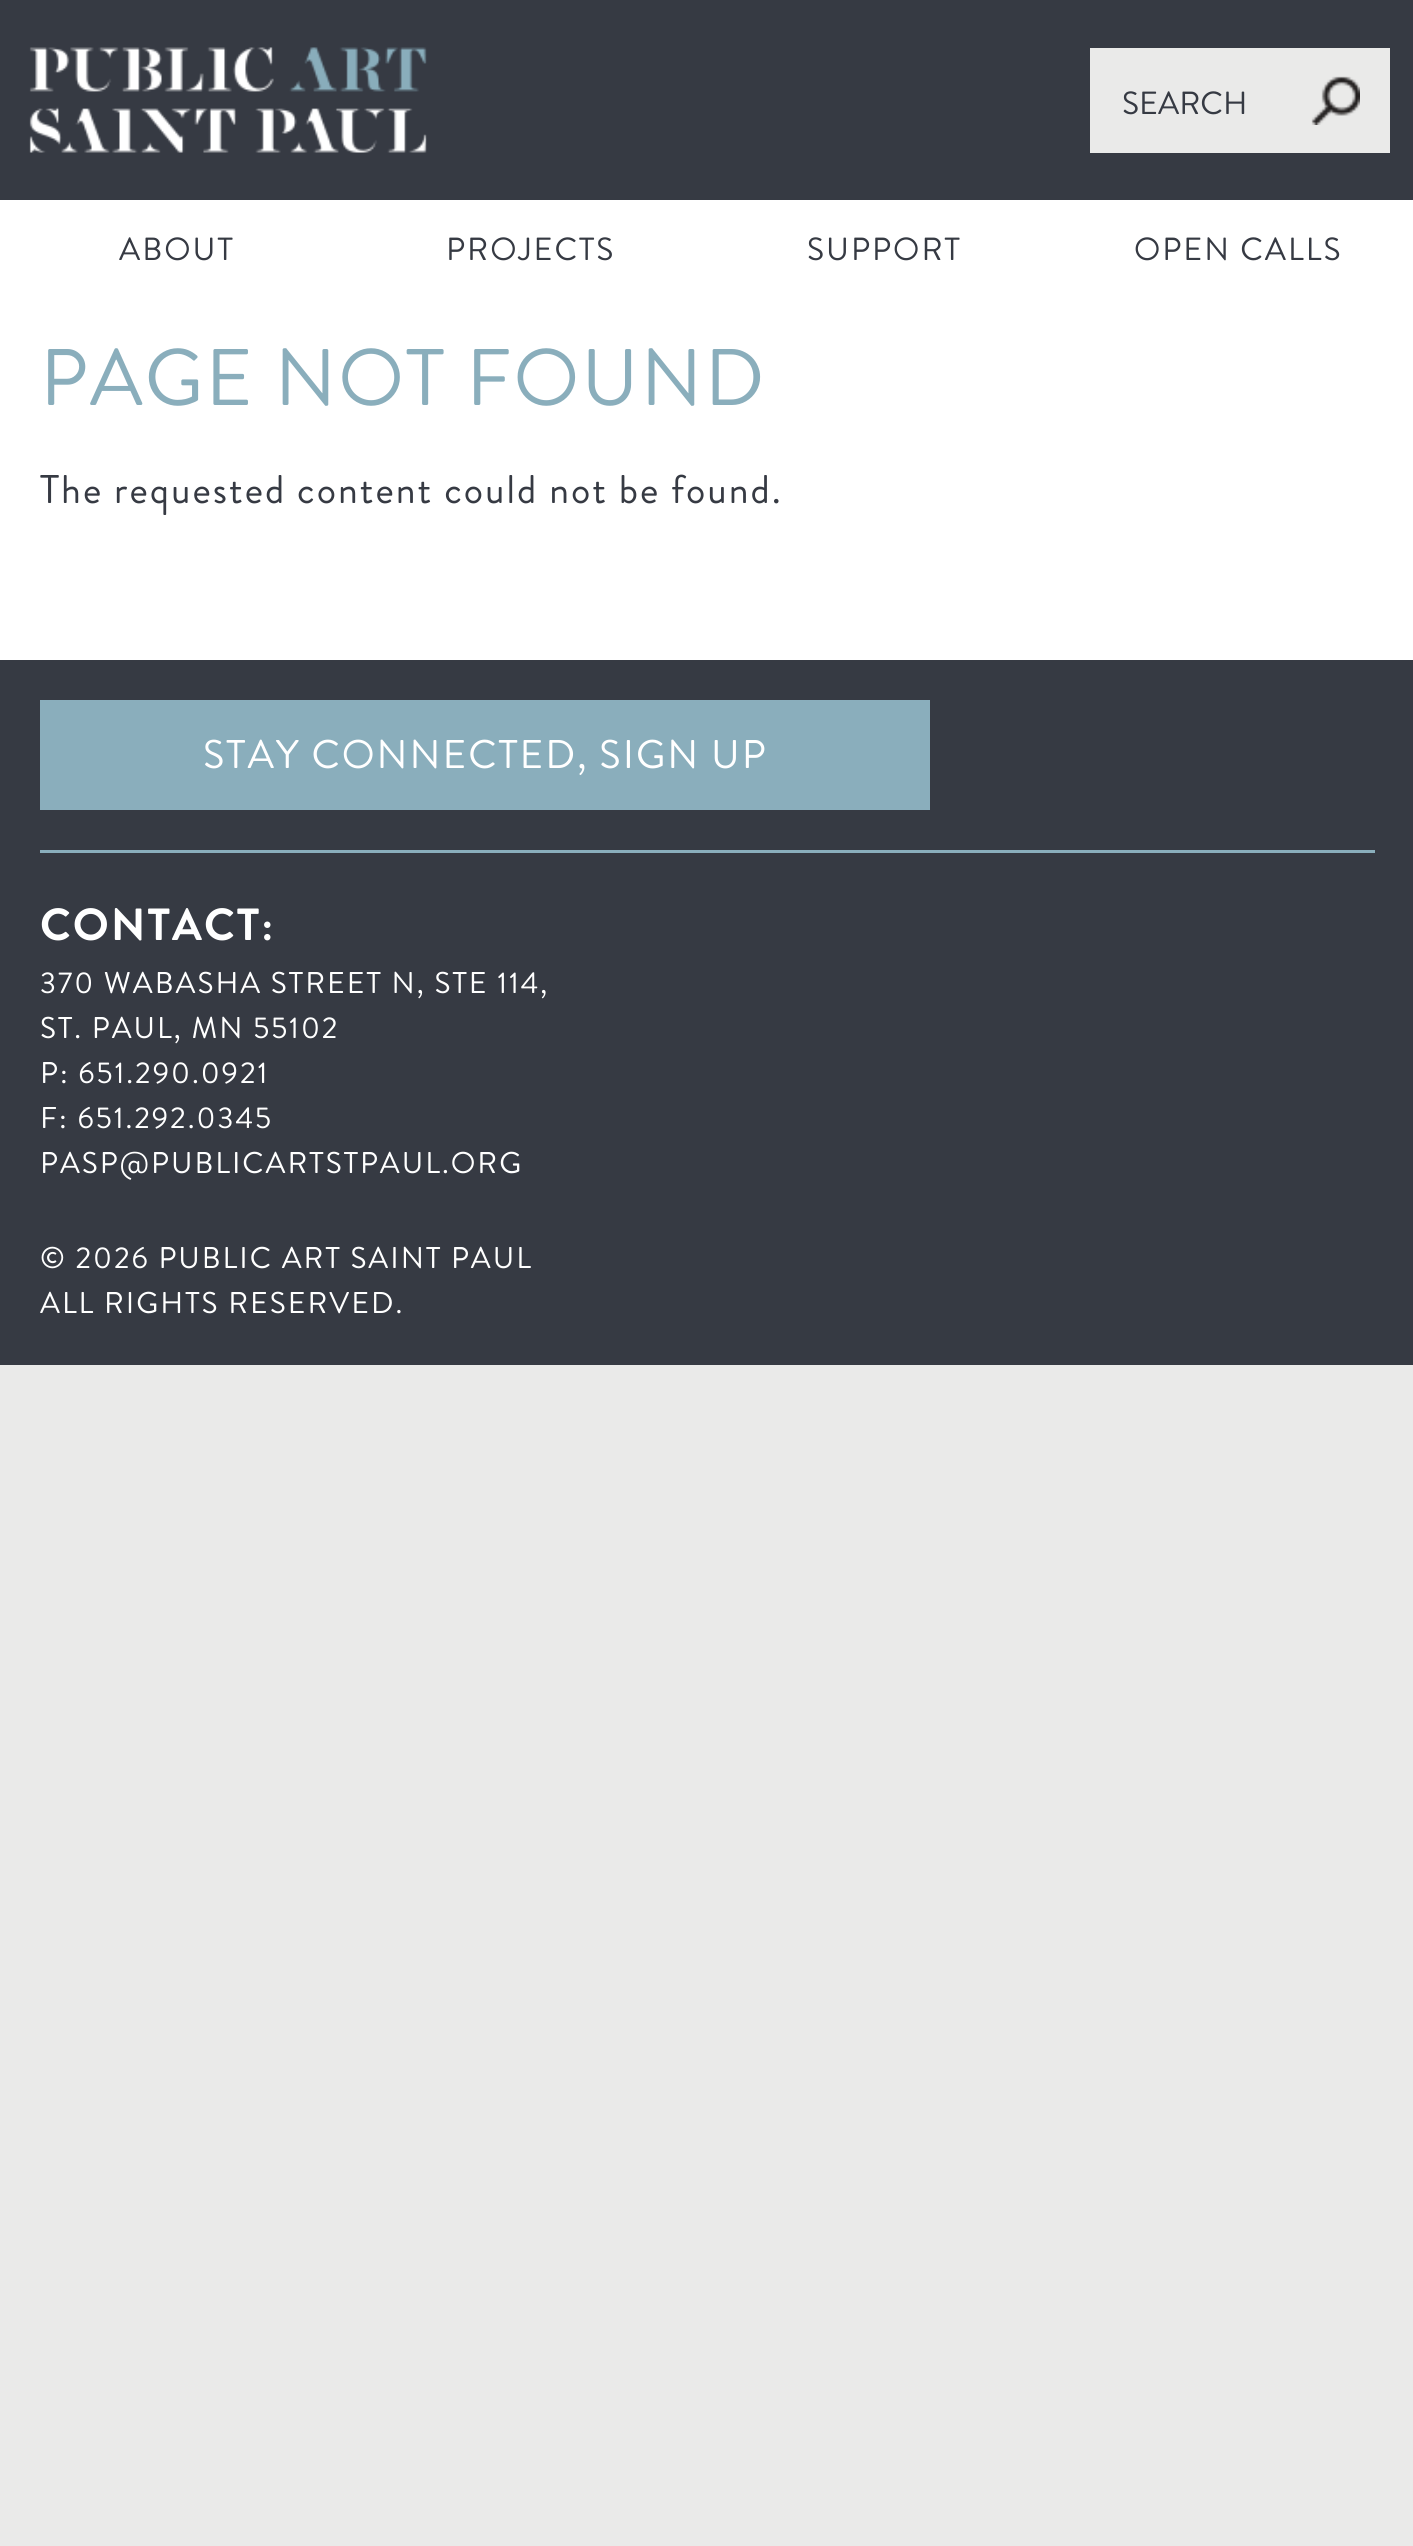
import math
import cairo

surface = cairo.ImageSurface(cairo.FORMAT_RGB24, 1413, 2546)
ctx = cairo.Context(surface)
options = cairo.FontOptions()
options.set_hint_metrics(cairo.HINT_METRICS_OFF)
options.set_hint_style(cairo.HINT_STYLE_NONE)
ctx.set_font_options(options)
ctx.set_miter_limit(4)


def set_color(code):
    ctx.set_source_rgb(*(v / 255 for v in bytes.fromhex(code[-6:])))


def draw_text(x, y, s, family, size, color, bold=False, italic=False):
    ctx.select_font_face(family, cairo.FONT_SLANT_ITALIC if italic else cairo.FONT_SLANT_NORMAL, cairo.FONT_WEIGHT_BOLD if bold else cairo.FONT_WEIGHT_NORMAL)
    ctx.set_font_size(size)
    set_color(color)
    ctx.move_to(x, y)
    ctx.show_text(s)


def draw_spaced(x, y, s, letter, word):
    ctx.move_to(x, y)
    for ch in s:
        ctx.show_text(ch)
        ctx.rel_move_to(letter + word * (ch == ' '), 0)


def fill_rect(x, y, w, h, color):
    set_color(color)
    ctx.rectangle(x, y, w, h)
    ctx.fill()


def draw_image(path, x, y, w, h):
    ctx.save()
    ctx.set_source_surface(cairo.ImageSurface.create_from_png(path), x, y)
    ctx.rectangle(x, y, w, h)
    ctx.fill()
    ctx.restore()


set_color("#eaeae9")
ctx.paint()
fill_rect(0, 200, 1413, 460, "#ffffff")
fill_rect(0, 0, 1413, 200, "#363a43")
draw_image("assets/img1.png", 29, 47, 398, 106)
fill_rect(1090, 48, 300, 105, "#eaeae9")
draw_text(1122, 114, "SEARCH", "Brandon Grotesque", 32, "#363a43")
draw_image("assets/img2.png", 1311, 76, 49, 49)
draw_spaced(119, 260, "ABOUT", 2, 0)
draw_spaced(446, 260, "PROJECTS", 2, 0)
draw_spaced(807, 260, "SUPPORT", 2, 0)
draw_spaced(1134, 260, "OPEN CALLS", 2, 0)
ctx.set_font_size(80)
set_color("#8aaebc")
draw_spaced(40, 405, "PAGE NOT FOUND", 2, 0)
ctx.set_font_size(40)
set_color("#363a43")
draw_spaced(40, 503, "The requested content could not be found.", 2, 0)
fill_rect(0, 660, 1413, 705, "#363a43")
fill_rect(40, 850, 1335, 3, "#8aaebc")
fill_rect(40, 700, 890, 110, "#8aaebc")
set_color("#ffffff")
draw_spaced(203, 768, "STAY CONNECTED, SIGN UP", 2, 0)
ctx.select_font_face("Brandon Grotesque", cairo.FONT_SLANT_NORMAL, cairo.FONT_WEIGHT_BOLD)
ctx.set_font_size(45)
draw_spaced(40, 940, "CONTACT:", 2, 0)
ctx.select_font_face("Brandon Grotesque")
ctx.set_font_size(30)
draw_spaced(40, 993, "370 WABASHA STREET N, STE 114,", 2, 0)
draw_spaced(40, 1038, "ST. PAUL, MN 55102", 2, 0)
draw_spaced(40, 1083, "P: 651.290.0921", 2, 0)
draw_spaced(40, 1128, "F: 651.292.0345", 2, 0)
draw_spaced(40, 1173, "PASP@PUBLICARTSTPAUL.ORG", 2, 0)
draw_spaced(40, 1268, "© 2026 PUBLIC ART SAINT PAUL", 2, 0)
draw_spaced(40, 1313, "ALL RIGHTS RESERVED.", 2, 0)
surface.write_to_png("output.png")
